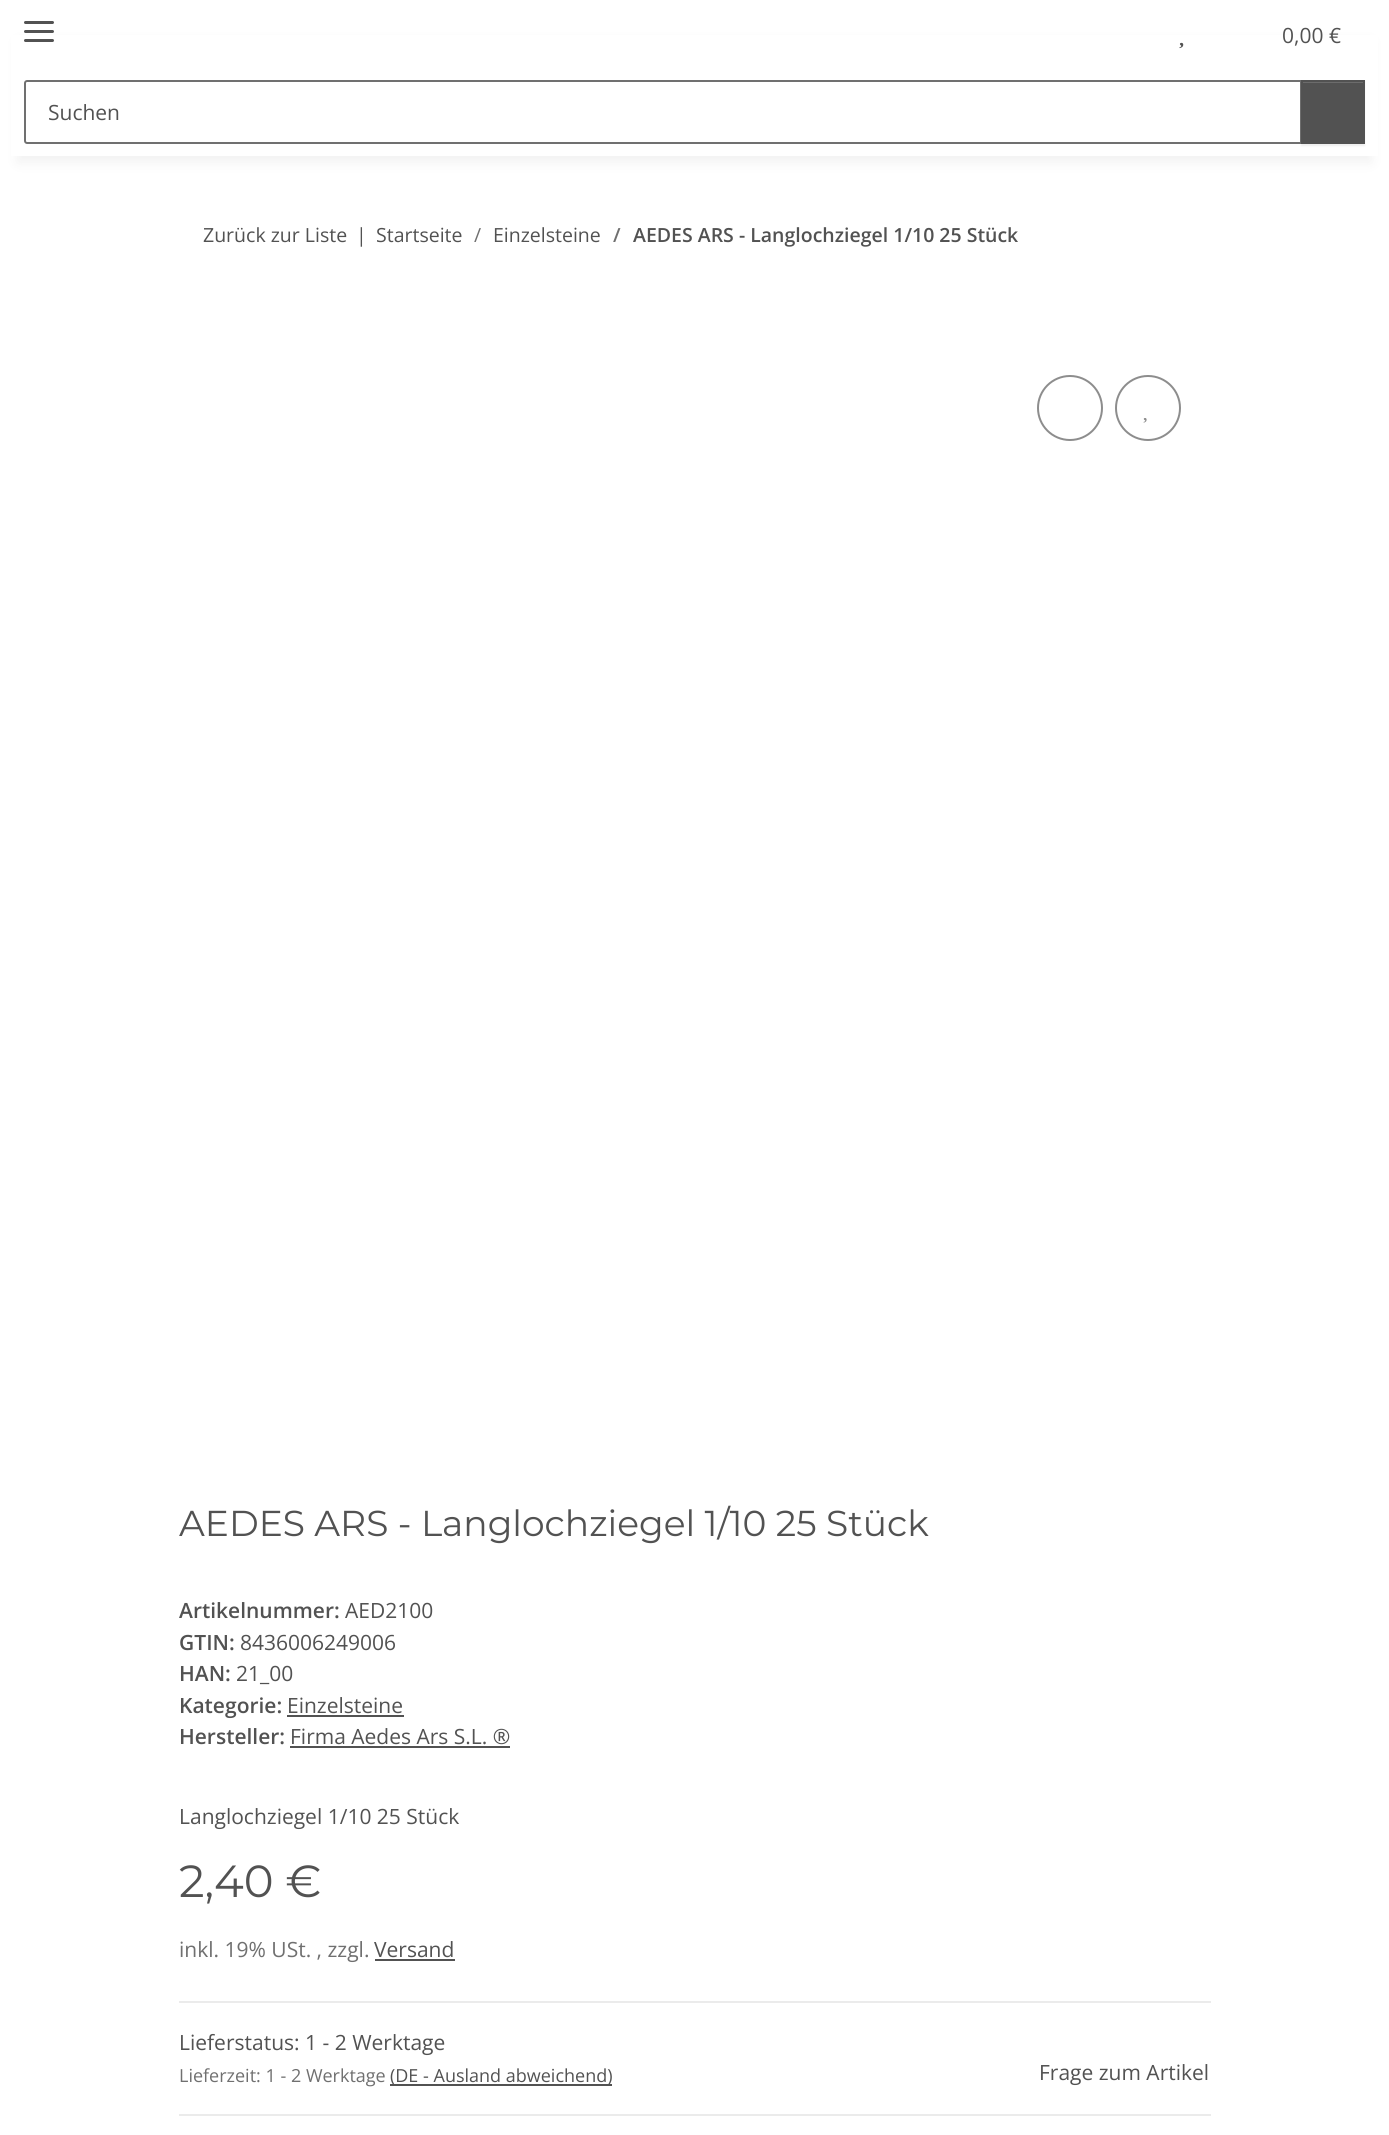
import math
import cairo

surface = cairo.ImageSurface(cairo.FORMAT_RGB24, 1389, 2135)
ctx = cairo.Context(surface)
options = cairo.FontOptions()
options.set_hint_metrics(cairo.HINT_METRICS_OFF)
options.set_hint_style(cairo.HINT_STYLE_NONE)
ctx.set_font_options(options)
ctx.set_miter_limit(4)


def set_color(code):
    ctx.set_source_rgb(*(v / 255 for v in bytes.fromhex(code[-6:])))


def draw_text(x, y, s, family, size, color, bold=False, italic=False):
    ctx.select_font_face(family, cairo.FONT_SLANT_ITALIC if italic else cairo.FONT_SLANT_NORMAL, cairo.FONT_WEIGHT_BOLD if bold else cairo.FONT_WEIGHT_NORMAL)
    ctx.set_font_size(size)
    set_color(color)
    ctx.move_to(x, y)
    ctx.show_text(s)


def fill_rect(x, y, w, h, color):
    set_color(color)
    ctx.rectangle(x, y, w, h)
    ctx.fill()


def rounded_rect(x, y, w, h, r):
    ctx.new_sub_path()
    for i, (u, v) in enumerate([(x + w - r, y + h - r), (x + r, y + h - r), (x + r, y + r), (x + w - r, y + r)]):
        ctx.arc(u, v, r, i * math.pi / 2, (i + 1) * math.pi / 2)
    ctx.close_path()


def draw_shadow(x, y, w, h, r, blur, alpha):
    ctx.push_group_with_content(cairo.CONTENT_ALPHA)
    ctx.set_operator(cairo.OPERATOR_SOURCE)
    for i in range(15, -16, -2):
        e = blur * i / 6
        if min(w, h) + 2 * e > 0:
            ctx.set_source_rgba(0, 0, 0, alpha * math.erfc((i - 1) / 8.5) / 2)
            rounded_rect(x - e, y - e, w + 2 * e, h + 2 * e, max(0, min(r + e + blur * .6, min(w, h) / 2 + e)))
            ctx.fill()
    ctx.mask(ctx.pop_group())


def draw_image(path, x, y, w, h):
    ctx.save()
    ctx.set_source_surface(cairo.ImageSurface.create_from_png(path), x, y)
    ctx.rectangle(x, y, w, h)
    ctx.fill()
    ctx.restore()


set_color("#ffffff")
ctx.paint()
set_color("#000000")
draw_shadow(18, 42, 1353, 120, 0, 7, 0.06)
fill_rect(11, 35, 1367, 121, "#ffffff")
set_color("#525252")
rounded_rect(24, 30, 30, 3, 1.5)
ctx.fill()
rounded_rect(24, 21, 30, 3, 1.5)
ctx.fill()
rounded_rect(24, 39, 30, 3, 1.5)
ctx.fill()
draw_image("assets/img1.png", 1179, 42, 5, 7)
draw_text(1282, 43, "0,00 €", "Open Sans", 21, "#525252")
ctx.new_path()
ctx.move_to(27, 81)
ctx.line_to(1301, 81)
ctx.line_to(1301, 143)
ctx.line_to(27, 143)
ctx.curve_to(26, 143, 25, 142, 25, 141)
ctx.line_to(25, 83)
ctx.curve_to(25, 82, 26, 81, 27, 81)
ctx.close_path()
set_color("#707070")
ctx.stroke()
draw_text(48, 120, "Suchen", "Open Sans", 21, "#525252")
set_color("#000000")
draw_shadow(1301, 81, 64, 65, 0, 1, 0.07)
fill_rect(1303, 83, 60, 59, "#525252")
fill_rect(1302, 82, 62, 1, "#6c6c6c")
ctx.rectangle(1302, 81, 62, 62)
set_color("#525252")
ctx.stroke()
draw_text(203, 242, "Zurück zur Liste", "Open Sans", 19.5, "#525252")
draw_text(356, 242, "|", "Open Sans", 19.5, "#525252")
draw_text(376, 242, "Startseite", "Open Sans", 19.5, "#525252")
draw_text(474, 242, "/", "Open Sans", 19.5, "#707070")
draw_text(493, 242, "Einzelsteine", "Open Sans", 19.5, "#525252")
draw_text(613, 242, "/", "Open Sans SemiBold", 19.5, "#707070")
draw_text(633, 242, "AEDES ARS - Langlochziegel 1/10 25 Stück", "Open Sans SemiBold", 19.5, "#525252")
ctx.new_path()
ctx.arc(1070, 408, 32, 0, 2 * math.pi)
set_color("#8d8d8d")
ctx.stroke()
ctx.arc(1148, 408, 32, 0, 2 * math.pi)
ctx.stroke()
draw_image("assets/img2.png", 1143, 418, 4, 5)
draw_text(179, 1536, "AEDES ARS - Langlochziegel 1/10 25 Stück", "Montserrat", 36, "#525252")
draw_text(179, 1618, "Artikelnummer:", "Open Sans SemiBold", 21, "#525252")
draw_text(345, 1618, "AED2100", "Open Sans", 21, "#525252")
draw_text(179, 1650, "GTIN:", "Open Sans SemiBold", 21, "#525252")
draw_text(240, 1650, "8436006249006", "Open Sans", 21, "#525252")
draw_text(179, 1681, "HAN:", "Open Sans SemiBold", 21, "#525252")
draw_text(236, 1681, "21_00", "Open Sans", 21, "#525252")
draw_text(179, 1713, "Kategorie:", "Open Sans SemiBold", 21, "#525252")
draw_text(287, 1713, "Einzelsteine", "Open Sans", 21, "#525252")
fill_rect(287, 1715, 117, 2, "#525252")
draw_text(179, 1744, "Hersteller:", "Open Sans SemiBold", 21, "#525252")
draw_text(290, 1744, "Firma Aedes Ars S.L. ®", "Open Sans", 21, "#525252")
fill_rect(290, 1746, 220, 2, "#525252")
draw_text(179, 1824, "Langlochziegel 1/10 25 Stück", "Open Sans", 21, "#525252")
draw_text(179, 1897, "2,40 €", "Montserrat", 45, "#525252")
draw_text(179, 1957, "inkl. 19% USt. , zzgl.", "Open Sans", 21, "#707070")
draw_text(374, 1957, "Versand", "Open Sans", 21, "#525252")
fill_rect(375, 1959, 80, 2, "#525252")
fill_rect(179, 2001, 1032, 2, "#ebebeb")
fill_rect(179, 2114, 1032, 2, "#ebebeb")
draw_text(179, 2050, "Lieferstatus: 1 - 2 Werktage", "Open Sans", 21, "#525252")
draw_text(179, 2082, "Lieferzeit: 1 - 2 Werktage", "Open Sans", 18, "#707070")
fill_rect(390, 2084, 222, 2, "#525252")
draw_text(390, 2082, "(DE - Ausland abweichend)", "Open Sans", 18, "#525252")
draw_text(1039, 2080, "Frage zum Artikel", "Open Sans", 21, "#525252")
surface.write_to_png("output.png")
